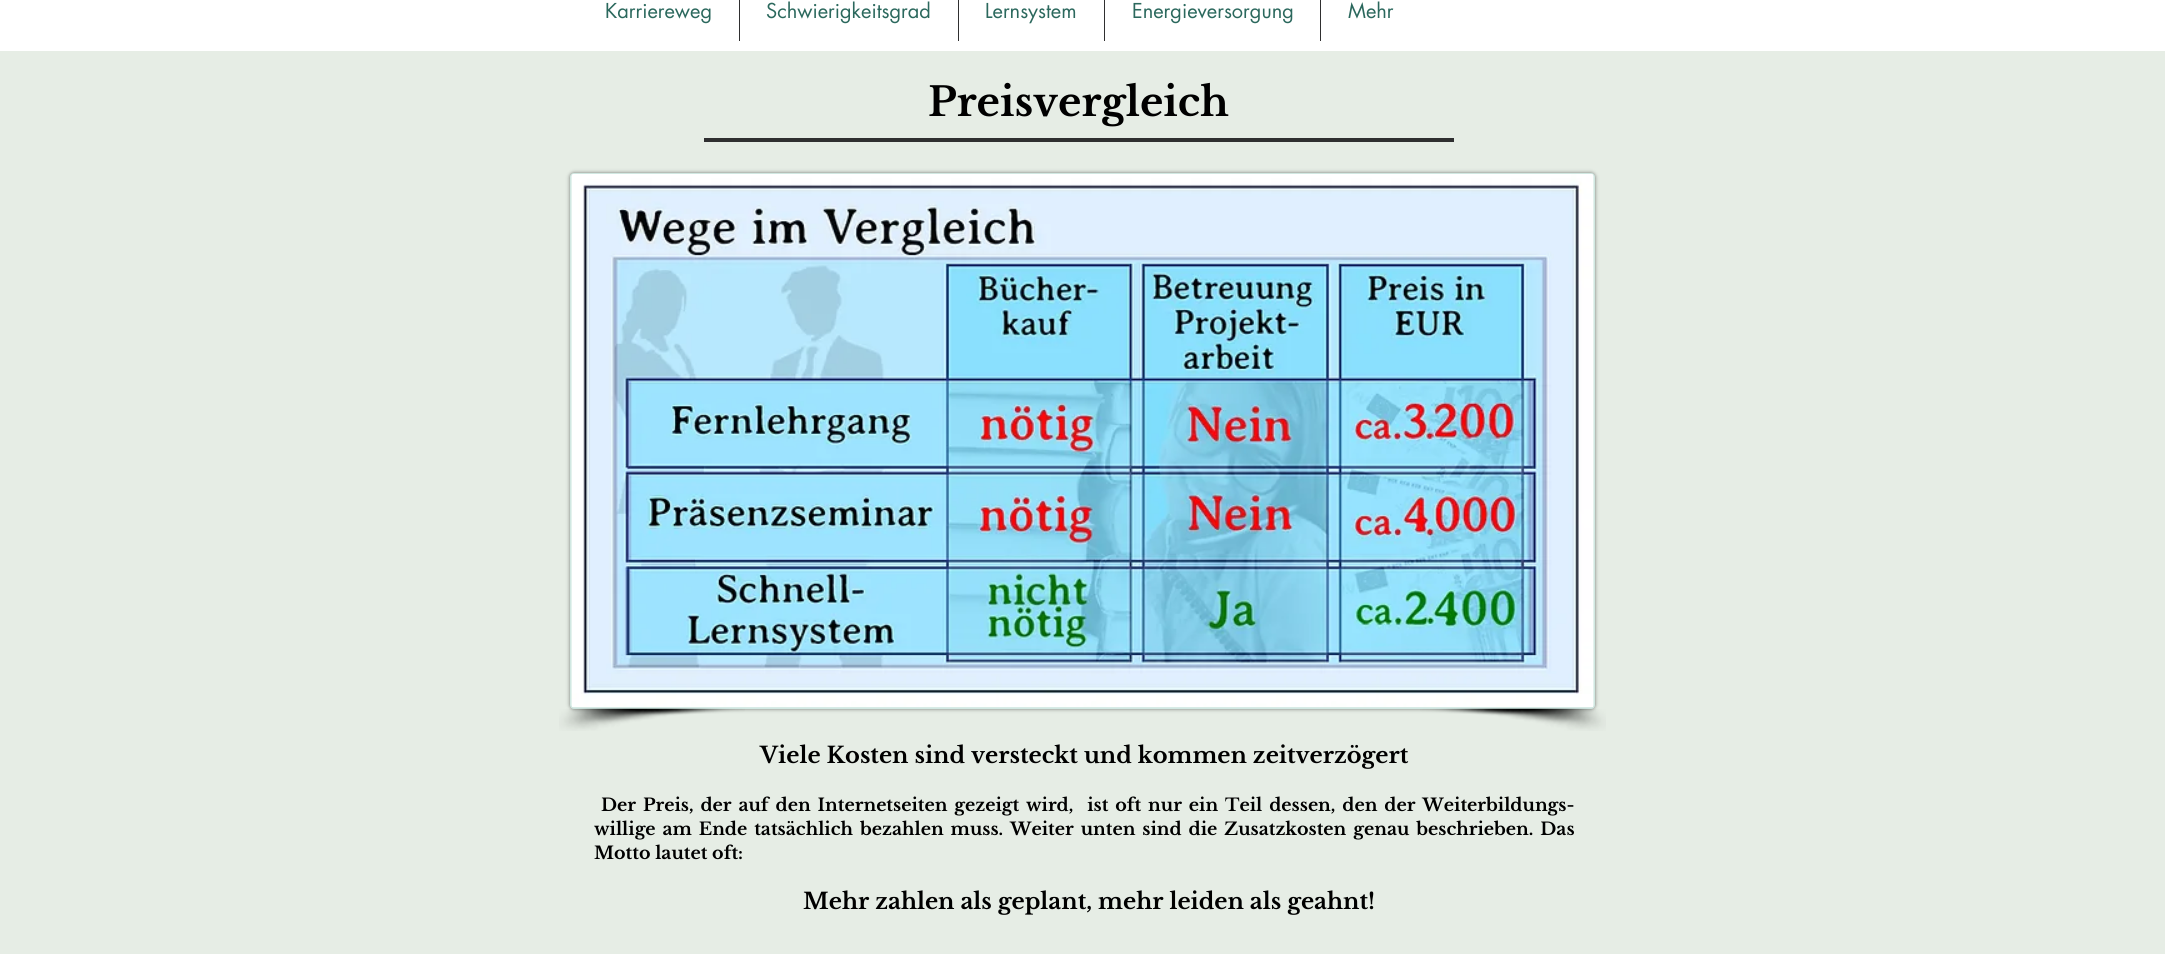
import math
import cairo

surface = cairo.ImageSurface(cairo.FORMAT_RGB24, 2165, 954)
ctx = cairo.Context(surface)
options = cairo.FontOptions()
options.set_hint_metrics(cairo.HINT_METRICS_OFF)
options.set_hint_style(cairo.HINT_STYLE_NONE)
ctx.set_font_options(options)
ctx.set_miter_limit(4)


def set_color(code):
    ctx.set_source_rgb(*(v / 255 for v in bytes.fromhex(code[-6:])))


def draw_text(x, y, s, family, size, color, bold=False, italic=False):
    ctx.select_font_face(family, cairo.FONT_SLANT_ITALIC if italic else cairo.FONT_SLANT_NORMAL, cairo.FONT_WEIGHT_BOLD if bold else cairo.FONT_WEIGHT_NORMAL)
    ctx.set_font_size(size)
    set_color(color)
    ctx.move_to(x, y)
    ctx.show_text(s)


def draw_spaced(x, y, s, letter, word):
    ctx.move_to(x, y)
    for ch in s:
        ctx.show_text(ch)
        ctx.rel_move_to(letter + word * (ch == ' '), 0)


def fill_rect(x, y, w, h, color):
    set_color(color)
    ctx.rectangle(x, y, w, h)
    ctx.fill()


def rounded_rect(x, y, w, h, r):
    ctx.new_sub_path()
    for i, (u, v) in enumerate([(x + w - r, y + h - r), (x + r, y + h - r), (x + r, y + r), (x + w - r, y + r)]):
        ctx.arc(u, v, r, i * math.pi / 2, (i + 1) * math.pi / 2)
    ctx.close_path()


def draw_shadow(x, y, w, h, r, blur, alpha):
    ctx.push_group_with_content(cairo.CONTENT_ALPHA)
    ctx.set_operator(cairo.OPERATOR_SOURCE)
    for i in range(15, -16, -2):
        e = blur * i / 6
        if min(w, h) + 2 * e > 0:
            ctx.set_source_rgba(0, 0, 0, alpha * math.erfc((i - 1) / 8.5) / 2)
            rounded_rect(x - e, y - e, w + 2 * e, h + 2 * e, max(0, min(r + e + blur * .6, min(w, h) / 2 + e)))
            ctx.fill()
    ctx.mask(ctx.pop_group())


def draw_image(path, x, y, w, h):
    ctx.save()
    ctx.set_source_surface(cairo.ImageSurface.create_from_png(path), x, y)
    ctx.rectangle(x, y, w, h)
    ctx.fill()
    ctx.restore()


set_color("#e6ede5")
ctx.paint()
fill_rect(0, 0, 2165, 51, "#ffffff")
draw_text(605, 18, "Karriereweg", "futura", 20, "#2b685d")
fill_rect(739, 0, 1, 41, "#2f2f30")
draw_text(766, 18, "Schwierigkeitsgrad", "futura", 20, "#2b685d")
fill_rect(958, 0, 1, 41, "#2f2f30")
draw_text(985, 18, "Lernsystem", "futura", 20, "#2b685d")
fill_rect(1104, 0, 1, 41, "#2f2f30")
draw_text(1132, 18, "Energieversorgung", "futura", 20, "#2b685d")
fill_rect(1320, 0, 1, 41, "#2f2f30")
draw_text(1348, 18, "Mehr", "futura", 20, "#2b685d")
draw_text(928, 116, "Preisvergleich", "Libre Baskerville", 40, "#000000", bold=True)
fill_rect(704, 138, 750, 4, "#2f2f30")
set_color("#000000")
draw_shadow(570, 173, 1025, 536, 4, 2, 0.5)
set_color("#d1e8e2")
rounded_rect(570.5, 173.5, 1024, 535, 3.5)
ctx.fill_preserve()
ctx.set_line_width(1)
ctx.stroke()
draw_image("assets/img1.png", 571, 174, 1023, 534)
draw_image("assets/img2.png", 559, 708, 186, 23)
draw_image("assets/img3.png", 1420, 708, 186, 23)
draw_text(760, 763, "Viele Kosten sind versteckt und kommen zeitverzögert", "Libre Baskerville", 22.5, "#000000", bold=True)
ctx.set_font_size(17.5)
draw_spaced(601, 811, "Der Preis, der auf den Internetseiten gezeigt wird,  ist oft nur ein Teil dessen, den der Weiterbildungs-", 0, 2.25)
draw_spaced(594, 835, "willige am Ende tatsächlich bezahlen muss. Weiter unten sind die Zusatzkosten genau beschrieben. Das", 0, 2.25)
draw_text(594, 859, "Motto lautet oft:", "Libre Baskerville", 17.5, "#000000", bold=True)
draw_text(803, 909, "Mehr zahlen als geplant, mehr leiden als geahnt!", "Libre Baskerville", 22.5, "#000000", bold=True)
surface.write_to_png("output.png")
